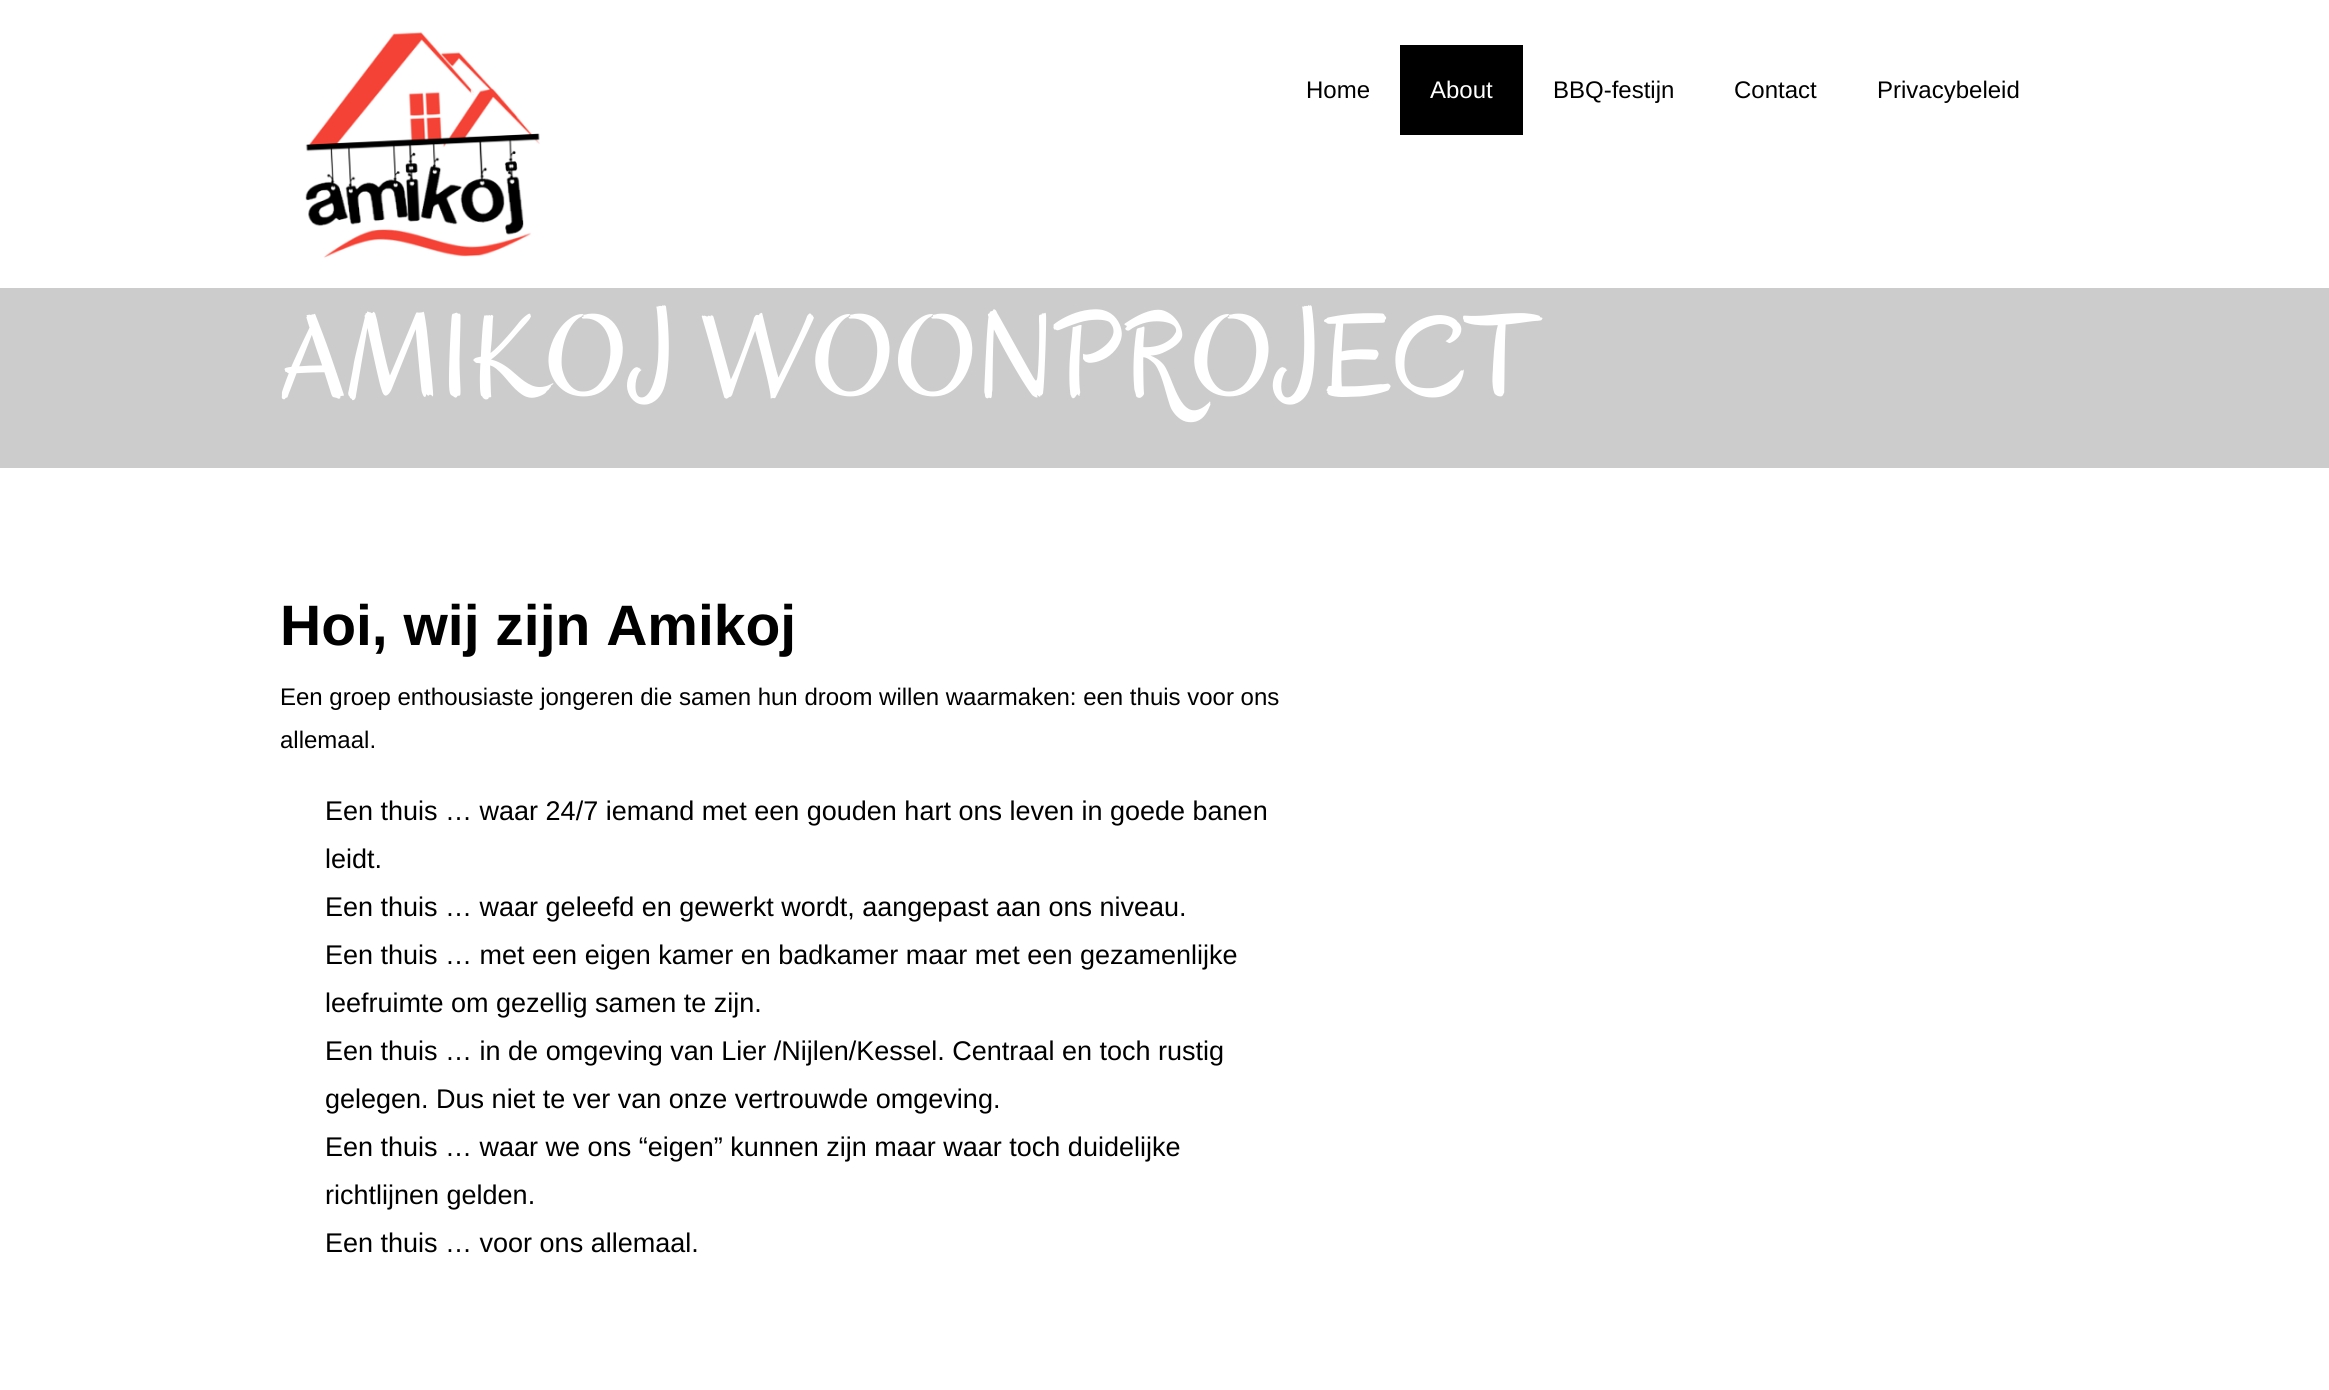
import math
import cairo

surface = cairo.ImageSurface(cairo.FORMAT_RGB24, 2329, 1390)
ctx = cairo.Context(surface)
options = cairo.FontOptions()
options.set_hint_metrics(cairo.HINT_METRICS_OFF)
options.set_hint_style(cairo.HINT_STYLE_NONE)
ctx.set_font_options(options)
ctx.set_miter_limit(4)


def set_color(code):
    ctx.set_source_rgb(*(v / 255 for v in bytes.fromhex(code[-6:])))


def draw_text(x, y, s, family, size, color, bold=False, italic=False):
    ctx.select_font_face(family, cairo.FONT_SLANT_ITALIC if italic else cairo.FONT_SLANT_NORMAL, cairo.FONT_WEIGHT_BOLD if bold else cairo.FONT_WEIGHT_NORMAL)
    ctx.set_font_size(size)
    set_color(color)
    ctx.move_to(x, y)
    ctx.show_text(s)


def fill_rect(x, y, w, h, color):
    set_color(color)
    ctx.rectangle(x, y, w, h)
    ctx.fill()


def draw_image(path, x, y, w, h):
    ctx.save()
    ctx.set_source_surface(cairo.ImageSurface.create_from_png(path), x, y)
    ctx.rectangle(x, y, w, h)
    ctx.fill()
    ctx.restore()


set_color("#ffffff")
ctx.paint()
draw_image("assets/img1.png", 305, 32, 235, 226)
draw_text(1306, 98, "Home", "Arimo", 24, "#000000")
fill_rect(1400, 45, 123, 90, "#000000")
draw_text(1430, 98, "About", "Arimo", 24, "#ffffff")
draw_text(1553, 98, "BBQ-festijn", "Arimo", 24, "#000000")
draw_text(1734, 98, "Contact", "Arimo", 24, "#000000")
draw_text(1877, 98, "Privacybeleid", "Arimo", 24, "#000000")
fill_rect(0, 288, 2329, 180, "#cccccc")
draw_text(280, 397, "AMIKOJ WOONPROJECT", "Oregano", 120, "#ffffff")
draw_text(280, 645, "Hoi, wij zijn Amikoj", "Arimo", 57, "#000000", bold=True)
draw_text(280, 705, "Een groep enthousiaste jongeren die samen hun droom willen waarmaken: een thuis voor ons", "Arimo", 24, "#000000")
draw_text(280, 748, "allemaal.", "Arimo", 24, "#000000")
draw_text(325, 820, "Een thuis … waar 24/7 iemand met een gouden hart ons leven in goede banen", "Arimo", 27, "#000000")
draw_text(325, 868, "leidt.", "Arimo", 27, "#000000")
draw_text(325, 916, "Een thuis … waar geleefd en gewerkt wordt, aangepast aan ons niveau.", "Arimo", 27, "#000000")
draw_text(325, 964, "Een thuis … met een eigen kamer en badkamer maar met een gezamenlijke", "Arimo", 27, "#000000")
draw_text(325, 1012, "leefruimte om gezellig samen te zijn.", "Arimo", 27, "#000000")
draw_text(325, 1060, "Een thuis … in de omgeving van Lier /Nijlen/Kessel. Centraal en toch rustig", "Arimo", 27, "#000000")
draw_text(325, 1108, "gelegen. Dus niet te ver van onze vertrouwde omgeving.", "Arimo", 27, "#000000")
draw_text(325, 1156, "Een thuis … waar we ons “eigen” kunnen zijn maar waar toch duidelijke", "Arimo", 27, "#000000")
draw_text(325, 1204, "richtlijnen gelden.", "Arimo", 27, "#000000")
draw_text(325, 1252, "Een thuis … voor ons allemaal.", "Arimo", 27, "#000000")
surface.write_to_png("output.png")
